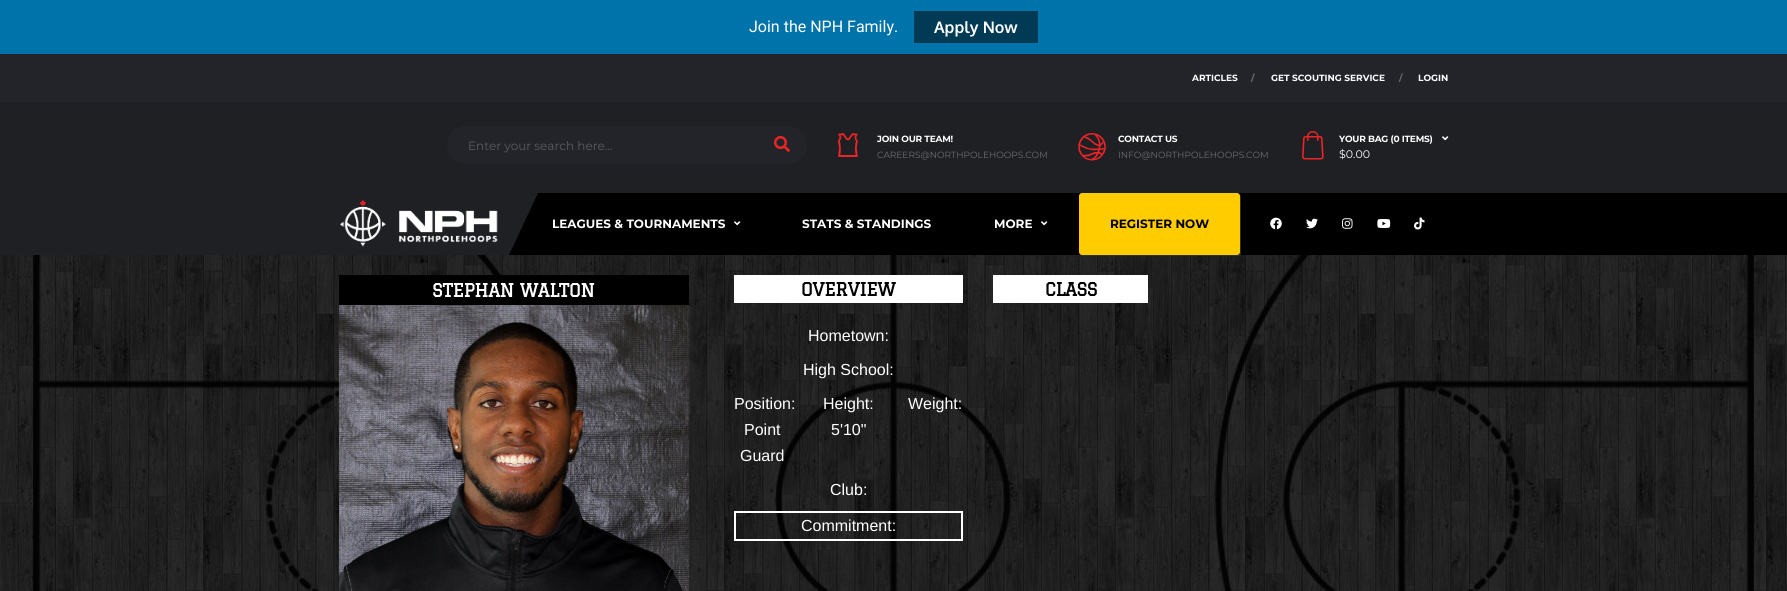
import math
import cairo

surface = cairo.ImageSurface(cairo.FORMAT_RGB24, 1787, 591)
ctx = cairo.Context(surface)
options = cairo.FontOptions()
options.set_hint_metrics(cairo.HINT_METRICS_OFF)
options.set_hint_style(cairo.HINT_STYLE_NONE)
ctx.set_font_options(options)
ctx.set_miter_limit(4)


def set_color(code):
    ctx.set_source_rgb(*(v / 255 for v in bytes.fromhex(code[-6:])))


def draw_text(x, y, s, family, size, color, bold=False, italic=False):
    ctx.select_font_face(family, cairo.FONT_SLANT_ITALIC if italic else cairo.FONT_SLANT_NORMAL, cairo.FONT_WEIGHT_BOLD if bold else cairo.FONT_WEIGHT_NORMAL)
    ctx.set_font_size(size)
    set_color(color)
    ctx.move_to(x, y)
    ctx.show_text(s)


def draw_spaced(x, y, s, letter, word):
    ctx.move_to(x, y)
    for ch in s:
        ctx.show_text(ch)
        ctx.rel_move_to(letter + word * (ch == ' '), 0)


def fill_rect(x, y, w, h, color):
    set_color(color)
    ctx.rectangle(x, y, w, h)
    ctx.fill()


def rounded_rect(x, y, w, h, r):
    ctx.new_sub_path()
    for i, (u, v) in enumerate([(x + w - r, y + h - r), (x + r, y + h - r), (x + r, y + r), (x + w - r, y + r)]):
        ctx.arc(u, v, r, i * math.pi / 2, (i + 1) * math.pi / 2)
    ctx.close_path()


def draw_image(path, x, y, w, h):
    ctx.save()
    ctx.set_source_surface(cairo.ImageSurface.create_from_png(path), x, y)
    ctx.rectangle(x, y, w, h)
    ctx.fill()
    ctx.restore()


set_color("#ffffff")
ctx.paint()
fill_rect(0, 0, 1787, 54, "#0073aa")
draw_text(749, 32, "Join the NPH Family.", "Roboto", 16, "#ffffff")
fill_rect(914, 11, 124, 32, "#003a55")
draw_text(934, 33, "Apply Now", "Oxygen", 16, "#ffffff", bold=True)
fill_rect(0, 102, 1787, 153, "#1e2024")
fill_rect(0, 54, 1787, 48, "#232429")
draw_text(1192, 81, "ARTICLES", "Montserrat", 9, "#ffffff", bold=True)
draw_text(1251, 81, "/", "Montserrat", 9, "#6b6d70", bold=True)
draw_text(1271, 81, "GET SCOUTING SERVICE", "Montserrat", 9, "#ffffff", bold=True)
draw_text(1399, 81, "/", "Montserrat", 9, "#6b6d70", bold=True)
draw_text(1418, 81, "LOGIN", "Montserrat", 9, "#ffffff", bold=True)
set_color("#232429")
rounded_rect(447, 126, 360, 38, 19)
ctx.fill()
draw_text(468, 150, "Enter your search here...", "Montserrat Thin", 12, "#5a5b5f")
draw_image("assets/img1.png", 774, 136, 16, 16)
draw_image("assets/img2.png", 837, 133, 21, 24)
ctx.select_font_face("Montserrat", cairo.FONT_SLANT_NORMAL, cairo.FONT_WEIGHT_BOLD)
ctx.set_font_size(9)
set_color("#ffffff")
draw_spaced(877, 142, "JOIN OUR TEAM!", -0.2, 0)
draw_text(877, 158, "CAREERS@NORTHPOLEHOOPS.COM", "Montserrat Thin", 9, "#6b6d70")
draw_image("assets/img3.png", 1078, 133, 28, 28)
ctx.select_font_face("Montserrat", cairo.FONT_SLANT_NORMAL, cairo.FONT_WEIGHT_BOLD)
set_color("#ffffff")
draw_spaced(1118, 142, "CONTACT US", -0.2, 0)
draw_text(1118, 158, "INFO@NORTHPOLEHOOPS.COM", "Montserrat Thin", 9, "#6b6d70")
draw_image("assets/img5.png", 1302, 136, 22, 24)
draw_image("assets/img4.png", 1307, 131, 12, 10)
ctx.select_font_face("Montserrat", cairo.FONT_SLANT_NORMAL, cairo.FONT_WEIGHT_BOLD)
set_color("#ffffff")
draw_spaced(1339, 142, "YOUR BAG (0 ITEMS)", -0.2, 0)
draw_image("assets/img6.png", 1442, 136, 7, 5)
draw_text(1339, 158, "$0.00", "Montserrat Thin", 11, "#ffffff")
fill_rect(509, 193, 1278, 62, "#000000")
set_color("#1e2024")
ctx.new_path()
ctx.move_to(328, 193)
ctx.line_to(538, 193)
ctx.line_to(509, 255)
ctx.line_to(299, 255)
ctx.close_path()
ctx.fill()
draw_image("assets/img7.png", 340, 199, 158, 48)
draw_text(552, 228, "LEAGUES & TOURNAMENTS", "Montserrat", 12, "#ffffff", bold=True)
draw_image("assets/img8.png", 734, 221, 7, 5)
draw_text(802, 228, "STATS & STANDINGS", "Montserrat", 12, "#ffffff", bold=True)
draw_text(994, 228, "MORE", "Montserrat", 12, "#ffffff", bold=True)
draw_image("assets/img8.png", 1041, 221, 7, 5)
draw_image("assets/img14.png", 0, 255, 1787, 336)
set_color("#2f2f2f")
ctx.new_path()
ctx.move_to(1080, 255)
ctx.curve_to(1081, 255, 1082, 256, 1083, 256)
ctx.line_to(1238, 256)
ctx.curve_to(1240, 256, 1241, 255, 1241, 253)
ctx.line_to(1241, 197)
ctx.curve_to(1241, 196, 1240, 195, 1240, 194)
ctx.line_to(1240, 196)
ctx.line_to(1240, 252)
ctx.curve_to(1240, 254, 1239, 255, 1237, 255)
ctx.line_to(1082, 255)
ctx.close_path()
ctx.fill()
set_color("#ffcc00")
rounded_rect(1079, 193, 161, 62, 3)
ctx.fill()
draw_text(1110, 228, "REGISTER NOW", "Montserrat", 12, "#000000", bold=True)
draw_image("assets/img9.png", 1270, 217, 12, 13)
draw_image("assets/img10.png", 1306, 218, 12, 11)
draw_image("assets/img11.png", 1342, 218, 11, 11)
draw_image("assets/img12.png", 1377, 219, 14, 9)
draw_image("assets/img13.png", 1414, 217, 11, 13)
fill_rect(339, 275, 350, 30, "#000000")
ctx.select_font_face("Graduate", cairo.FONT_SLANT_NORMAL, cairo.FONT_WEIGHT_BOLD)
ctx.set_font_size(18)
set_color("#ffffff")
draw_spaced(432, 297, "STEPHAN WALTON", -0.4, 0)
draw_image("assets/img15.png", 338, 305, 351, 286)
fill_rect(734, 275, 229, 28, "#ffffff")
set_color("#000000")
draw_spaced(801, 296, "OVERVIEW", -0.4, 0)
draw_text(808, 341, "Hometown:", "Liberation Sans", 16, "#ffffff")
draw_text(803, 375, "High School:", "Liberation Sans", 16, "#ffffff")
draw_text(734, 409, "Position:", "Liberation Sans", 16, "#ffffff")
draw_text(744, 435, "Point", "Liberation Sans", 16, "#ffffff")
draw_text(740, 461, "Guard", "Liberation Sans", 16, "#ffffff")
draw_text(823, 409, "Height:", "Liberation Sans", 16, "#ffffff")
draw_text(831, 435, "5'10\"", "Liberation Sans", 16, "#ffffff")
draw_text(908, 409, "Weight:", "Liberation Sans", 16, "#ffffff")
draw_text(830, 495, "Club:", "Liberation Sans", 16, "#ffffff")
ctx.rectangle(735, 512, 227, 28)
ctx.stroke()
draw_text(801, 531, "Commitment:", "Liberation Sans", 16, "#ffffff")
fill_rect(993, 275, 155, 28, "#ffffff")
ctx.select_font_face("Graduate", cairo.FONT_SLANT_NORMAL, cairo.FONT_WEIGHT_BOLD)
ctx.set_font_size(18)
set_color("#000000")
draw_spaced(1045, 296, "CLASS", -0.4, 0)
surface.write_to_png("output.png")
